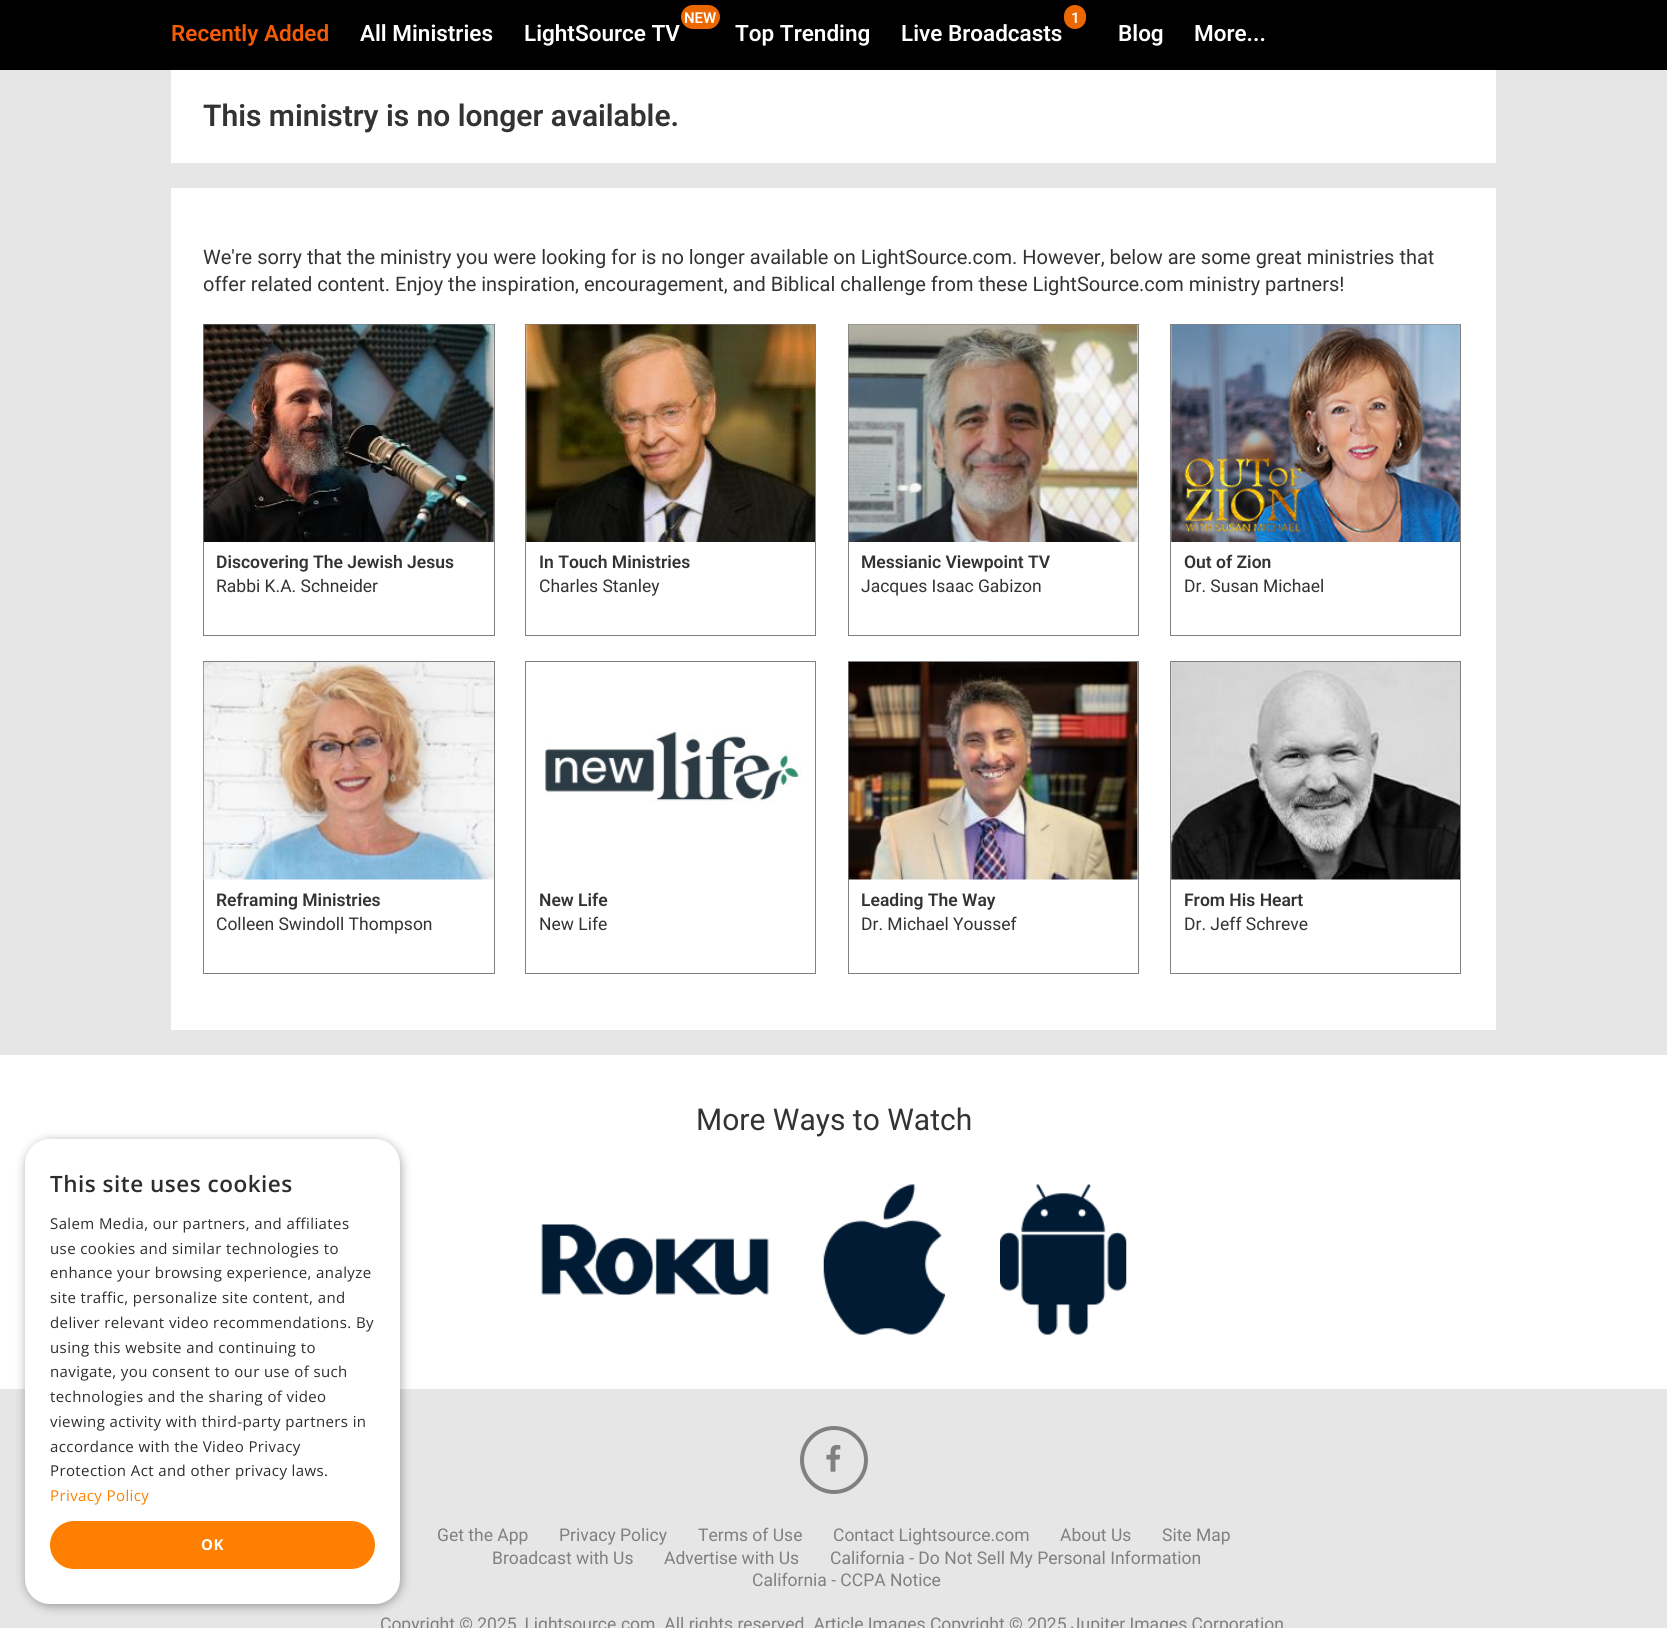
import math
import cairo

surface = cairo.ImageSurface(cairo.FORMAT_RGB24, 1667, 1628)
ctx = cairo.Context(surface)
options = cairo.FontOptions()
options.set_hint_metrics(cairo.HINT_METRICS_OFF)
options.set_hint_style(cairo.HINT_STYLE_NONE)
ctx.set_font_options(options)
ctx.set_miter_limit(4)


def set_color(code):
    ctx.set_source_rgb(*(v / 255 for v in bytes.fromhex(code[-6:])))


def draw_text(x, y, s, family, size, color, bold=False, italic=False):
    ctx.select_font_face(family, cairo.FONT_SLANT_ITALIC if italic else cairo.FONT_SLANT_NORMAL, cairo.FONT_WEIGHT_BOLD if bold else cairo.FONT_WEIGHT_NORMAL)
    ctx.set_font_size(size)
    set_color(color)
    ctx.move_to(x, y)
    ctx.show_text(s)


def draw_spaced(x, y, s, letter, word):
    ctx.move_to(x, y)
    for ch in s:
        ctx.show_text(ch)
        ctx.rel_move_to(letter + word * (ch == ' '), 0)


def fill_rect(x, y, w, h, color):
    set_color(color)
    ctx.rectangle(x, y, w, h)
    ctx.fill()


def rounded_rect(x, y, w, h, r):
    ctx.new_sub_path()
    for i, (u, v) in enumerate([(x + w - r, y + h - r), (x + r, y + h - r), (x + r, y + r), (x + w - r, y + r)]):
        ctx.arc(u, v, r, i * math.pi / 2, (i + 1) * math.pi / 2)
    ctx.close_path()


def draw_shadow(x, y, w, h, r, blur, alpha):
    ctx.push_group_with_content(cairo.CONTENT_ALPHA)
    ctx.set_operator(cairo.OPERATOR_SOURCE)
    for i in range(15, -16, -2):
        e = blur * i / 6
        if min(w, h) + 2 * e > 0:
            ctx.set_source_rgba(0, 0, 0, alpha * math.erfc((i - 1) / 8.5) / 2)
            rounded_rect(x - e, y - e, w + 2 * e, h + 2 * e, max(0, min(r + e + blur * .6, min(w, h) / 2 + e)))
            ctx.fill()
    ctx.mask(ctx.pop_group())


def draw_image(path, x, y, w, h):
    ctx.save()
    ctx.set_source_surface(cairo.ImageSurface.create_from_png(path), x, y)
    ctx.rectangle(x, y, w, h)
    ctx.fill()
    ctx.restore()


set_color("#e6e6e6")
ctx.paint()
fill_rect(0, 0, 1667, 70, "#000000")
draw_text(171, 41, "Recently Added", "Roboto SemiBold", 22.5, "#f35b04")
draw_text(360, 41, "All Ministries", "Roboto SemiBold", 22.5, "#ffffff")
set_color("#eb6701")
rounded_rect(681, 5, 39, 24, 12)
ctx.fill()
draw_text(684, 23, "NEW", "Roboto SemiBold", 15, "#ffffff")
draw_text(524, 41, "LightSource TV", "Roboto SemiBold", 22.5, "#ffffff")
draw_text(735, 41, "Top Trending", "Roboto SemiBold", 22.5, "#ffffff")
set_color("#eb6701")
rounded_rect(1064, 5, 22, 24, 11)
ctx.fill()
draw_text(1071, 23, "1", "Roboto SemiBold", 15, "#ffffff")
draw_text(901, 41, "Live Broadcasts", "Roboto SemiBold", 22.5, "#ffffff")
draw_text(1118, 41, "Blog", "Roboto SemiBold", 22.5, "#ffffff")
draw_text(1194, 41, "More...", "Roboto SemiBold", 22.5, "#ffffff")
fill_rect(171, 70, 1325, 93, "#ffffff")
draw_text(203, 126, "This ministry is no longer available.", "Roboto SemiBold", 30, "#333333")
fill_rect(171, 188, 1325, 842, "#ffffff")
draw_text(203, 264, "We're sorry that the ministry you were looking for is no longer available on LightSource.com. However, below are some great ministries that", "Roboto", 20, "#333333")
draw_text(203, 291, "offer related content. Enjoy the inspiration, encouragement, and Biblical challenge from these LightSource.com ministry partners!", "Roboto", 20, "#333333")
ctx.rectangle(203.5, 324.5, 291, 311)
set_color("#808080")
ctx.set_line_width(1)
ctx.stroke()
draw_image("assets/img1.png", 203, 324, 291, 218)
draw_text(216, 568, "Discovering The Jewish Jesus", "Roboto SemiBold", 17.5, "#333333")
draw_text(216, 592, "Rabbi K.A. Schneider", "Roboto", 17.5, "#333333")
ctx.rectangle(525.5, 324.5, 290, 311)
set_color("#808080")
ctx.stroke()
draw_image("assets/img2.png", 526, 324, 289, 218)
draw_text(539, 568, "In Touch Ministries", "Roboto SemiBold", 17.5, "#333333")
draw_text(539, 592, "Charles Stanley", "Roboto", 17.5, "#333333")
ctx.rectangle(848.5, 324.5, 290, 311)
set_color("#808080")
ctx.stroke()
draw_image("assets/img3.png", 848, 324, 290, 218)
draw_text(861, 568, "Messianic Viewpoint TV", "Roboto SemiBold", 17.5, "#333333")
draw_text(861, 592, "Jacques Isaac Gabizon", "Roboto", 17.5, "#333333")
ctx.rectangle(1170.5, 324.5, 290, 311)
set_color("#808080")
ctx.stroke()
draw_image("assets/img4.png", 1171, 324, 289, 218)
draw_text(1184, 568, "Out of Zion", "Roboto SemiBold", 17.5, "#333333")
draw_text(1184, 592, "Dr. Susan Michael", "Roboto", 17.5, "#333333")
ctx.rectangle(203.5, 661.5, 291, 312)
set_color("#808080")
ctx.stroke()
draw_image("assets/img5.png", 203, 662, 291, 218)
draw_text(216, 906, "Reframing Ministries", "Roboto SemiBold", 17.5, "#333333")
draw_text(216, 930, "Colleen Swindoll Thompson", "Roboto", 17.5, "#333333")
ctx.rectangle(525.5, 661.5, 290, 312)
set_color("#808080")
ctx.stroke()
draw_image("assets/img6.png", 545, 729, 257, 75)
draw_text(539, 906, "New Life", "Roboto SemiBold", 17.5, "#333333")
draw_text(539, 930, "New Life", "Roboto", 17.5, "#333333")
ctx.rectangle(848.5, 661.5, 290, 312)
set_color("#808080")
ctx.stroke()
draw_image("assets/img7.png", 848, 662, 290, 218)
draw_text(861, 906, "Leading The Way", "Roboto SemiBold", 17.5, "#333333")
draw_text(861, 930, "Dr. Michael Youssef", "Roboto", 17.5, "#333333")
ctx.rectangle(1170.5, 661.5, 290, 312)
set_color("#808080")
ctx.stroke()
draw_image("assets/img8.png", 1171, 662, 289, 218)
draw_text(1184, 906, "From His Heart", "Roboto SemiBold", 17.5, "#333333")
draw_text(1184, 930, "Dr. Jeff Schreve", "Roboto", 17.5, "#333333")
fill_rect(0, 1055, 1667, 334, "#ffffff")
set_color("#000000")
draw_shadow(26, 1141, 375, 465, 25, 5, 0.35)
set_color("#ffffff")
rounded_rect(25, 1139, 375, 465, 25)
ctx.fill()
ctx.select_font_face("Open Sans SemiBold")
ctx.set_font_size(22.5)
set_color("#2d2d2d")
draw_spaced(50, 1192, "This site uses cookies", 0.5, 0)
ctx.select_font_face("Open Sans")
ctx.set_font_size(15)
draw_spaced(50, 1229, "Salem Media, our partners, and affiliates", 0.4, 0)
draw_spaced(50, 1254, "use cookies and similar technologies to", 0.4, 0)
draw_spaced(50, 1278, "enhance your browsing experience, analyze", 0.4, 0)
draw_spaced(50, 1303, "site traffic, personalize site content, and", 0.4, 0)
draw_spaced(50, 1328, "deliver relevant video recommendations. By", 0.4, 0)
draw_spaced(50, 1353, "using this website and continuing to", 0.4, 0)
draw_spaced(50, 1377, "navigate, you consent to our use of such", 0.4, 0)
draw_spaced(50, 1402, "technologies and the sharing of video", 0.4, 0)
draw_spaced(50, 1427, "viewing activity with third-party partners in", 0.4, 0)
draw_spaced(50, 1452, "accordance with the Video Privacy", 0.4, 0)
draw_spaced(50, 1476, "Protection Act and other privacy laws.", 0.4, 0)
set_color("#ff8000")
draw_spaced(50, 1501, "Privacy Policy", 0.4, 0)
rounded_rect(50, 1521, 325, 48, 24)
ctx.fill()
ctx.select_font_face("Open Sans", cairo.FONT_SLANT_NORMAL, cairo.FONT_WEIGHT_BOLD)
set_color("#ffffff")
draw_spaced(201, 1550, "OK", 0.5, 0)
draw_text(696, 1130, "More Ways to Watch", "Roboto", 30, "#333333")
draw_image("assets/img9.png", 541, 1224, 228, 72)
draw_image("assets/img10.png", 823, 1184, 122, 151)
draw_image("assets/img11.png", 1000, 1184, 127, 151)
ctx.arc(834, 1460, 32, 0, 2 * math.pi)
set_color("#808080")
ctx.set_line_width(4)
ctx.stroke()
draw_image("assets/img12.png", 826, 1445, 15, 27)
draw_text(437, 1541, "Get the App", "Roboto", 17.5, "#808080")
draw_text(559, 1541, "Privacy Policy", "Roboto", 17.5, "#808080")
draw_text(698, 1541, "Terms of Use", "Roboto", 17.5, "#808080")
draw_text(833, 1541, "Contact Lightsource.com", "Roboto", 17.5, "#808080")
draw_text(1060, 1541, "About Us", "Roboto", 17.5, "#808080")
draw_text(1162, 1541, "Site Map", "Roboto", 17.5, "#808080")
draw_text(492, 1564, "Broadcast with Us", "Roboto", 17.5, "#808080")
draw_text(664, 1564, "Advertise with Us", "Roboto", 17.5, "#808080")
draw_text(830, 1564, "California - Do Not Sell My Personal Information", "Roboto", 17.5, "#808080")
draw_text(752, 1586, "California - CCPA Notice", "Roboto", 17.5, "#808080")
draw_text(380, 1630, "Copyright © 2025, Lightsource.com. All rights reserved. Article Images Copyright © 2025 Jupiter Images Corporation", "Roboto", 17.5, "#808080")
surface.write_to_png("output.png")
